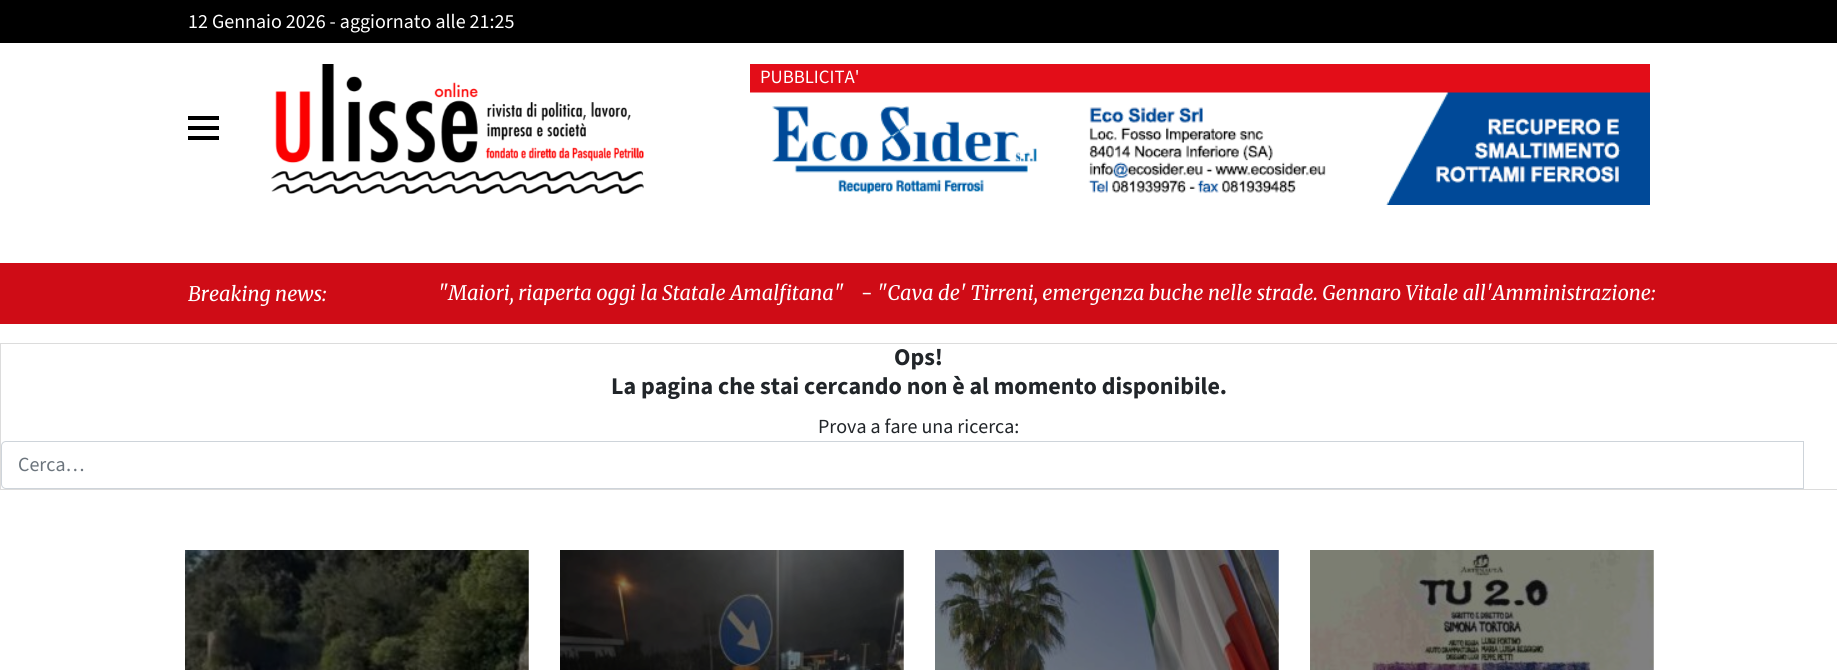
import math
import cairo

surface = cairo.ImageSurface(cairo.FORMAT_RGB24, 1837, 670)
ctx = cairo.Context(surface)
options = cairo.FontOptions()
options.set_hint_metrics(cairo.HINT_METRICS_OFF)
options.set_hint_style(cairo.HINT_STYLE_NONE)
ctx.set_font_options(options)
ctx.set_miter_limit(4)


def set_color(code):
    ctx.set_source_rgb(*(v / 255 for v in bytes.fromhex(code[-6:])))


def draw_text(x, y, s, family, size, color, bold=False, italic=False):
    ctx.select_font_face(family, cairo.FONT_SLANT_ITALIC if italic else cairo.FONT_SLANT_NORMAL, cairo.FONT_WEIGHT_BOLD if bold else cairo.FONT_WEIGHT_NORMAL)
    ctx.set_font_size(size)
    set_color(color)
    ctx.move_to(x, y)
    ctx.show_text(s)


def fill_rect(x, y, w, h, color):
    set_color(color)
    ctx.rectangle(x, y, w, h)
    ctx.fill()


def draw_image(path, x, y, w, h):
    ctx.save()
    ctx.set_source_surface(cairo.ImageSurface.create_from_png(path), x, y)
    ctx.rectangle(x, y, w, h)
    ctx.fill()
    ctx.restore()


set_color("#ffffff")
ctx.paint()
fill_rect(0, 0, 1837, 43, "#000000")
draw_text(188, 28, "12 Gennaio 2026 - aggiornato alle 21:25", "Source Sans 3", 20, "#ffffff")
fill_rect(188, 116, 31, 4, "#000000")
fill_rect(188, 126, 31, 4, "#000000")
fill_rect(188, 136, 31, 4, "#000000")
draw_image("assets/img1.png", 271, 64, 373, 130)
fill_rect(750, 64, 900, 29, "#e30d18")
draw_text(760, 83, "PUBBLICITA'", "Source Sans 3", 18.75, "#ffffff")
draw_image("assets/img2.png", 750, 92, 900, 113)
fill_rect(0, 263, 1837, 61, "#cf0c16")
draw_text(188, 301, "Breaking news:", "Merriweather", 20, "#ffffff", italic=True)
draw_text(438, 300, "\"Maiori, riaperta oggi la Statale Amalfitana\"", "Merriweather", 20, "#ffffff", italic=True)
draw_text(861, 300, "-", "Merriweather", 20, "#ffffff")
draw_text(877, 300, "\"Cava de' Tirreni, emergenza buche nelle strade. Gennaro Vitale all'Amministrazione:", "Merriweather", 20, "#ffffff", italic=True)
ctx.rectangle(0.5, 343.5, 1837, 146)
set_color("#dcdcdc")
ctx.set_line_width(1)
ctx.stroke()
draw_text(894, 365, "Ops!", "Source Sans 3", 24, "#212529", bold=True)
draw_text(611, 394, "La pagina che stai cercando non è al momento disponibile.", "Source Sans 3", 24, "#212529", bold=True)
draw_text(818, 433, "Prova a fare una ricerca:", "Source Sans 3", 20, "#212529")
ctx.new_path()
ctx.move_to(6, 441.5)
ctx.line_to(1803.5, 441.5)
ctx.line_to(1803.5, 488.5)
ctx.line_to(6, 488.5)
ctx.curve_to(3.5, 488.5, 1.5, 486.5, 1.5, 484)
ctx.line_to(1.5, 446)
ctx.curve_to(1.5, 443.5, 3.5, 441.5, 6, 441.5)
ctx.close_path()
set_color("#ced4da")
ctx.stroke()
draw_text(18, 471, "Cerca…", "Source Sans 3", 20, "#6c757d")
draw_image("assets/img3.png", 185, 550, 344, 120)
draw_image("assets/img4.png", 560, 550, 344, 120)
draw_image("assets/img5.png", 935, 550, 344, 120)
draw_image("assets/img6.png", 1310, 550, 344, 120)
surface.write_to_png("output.png")
